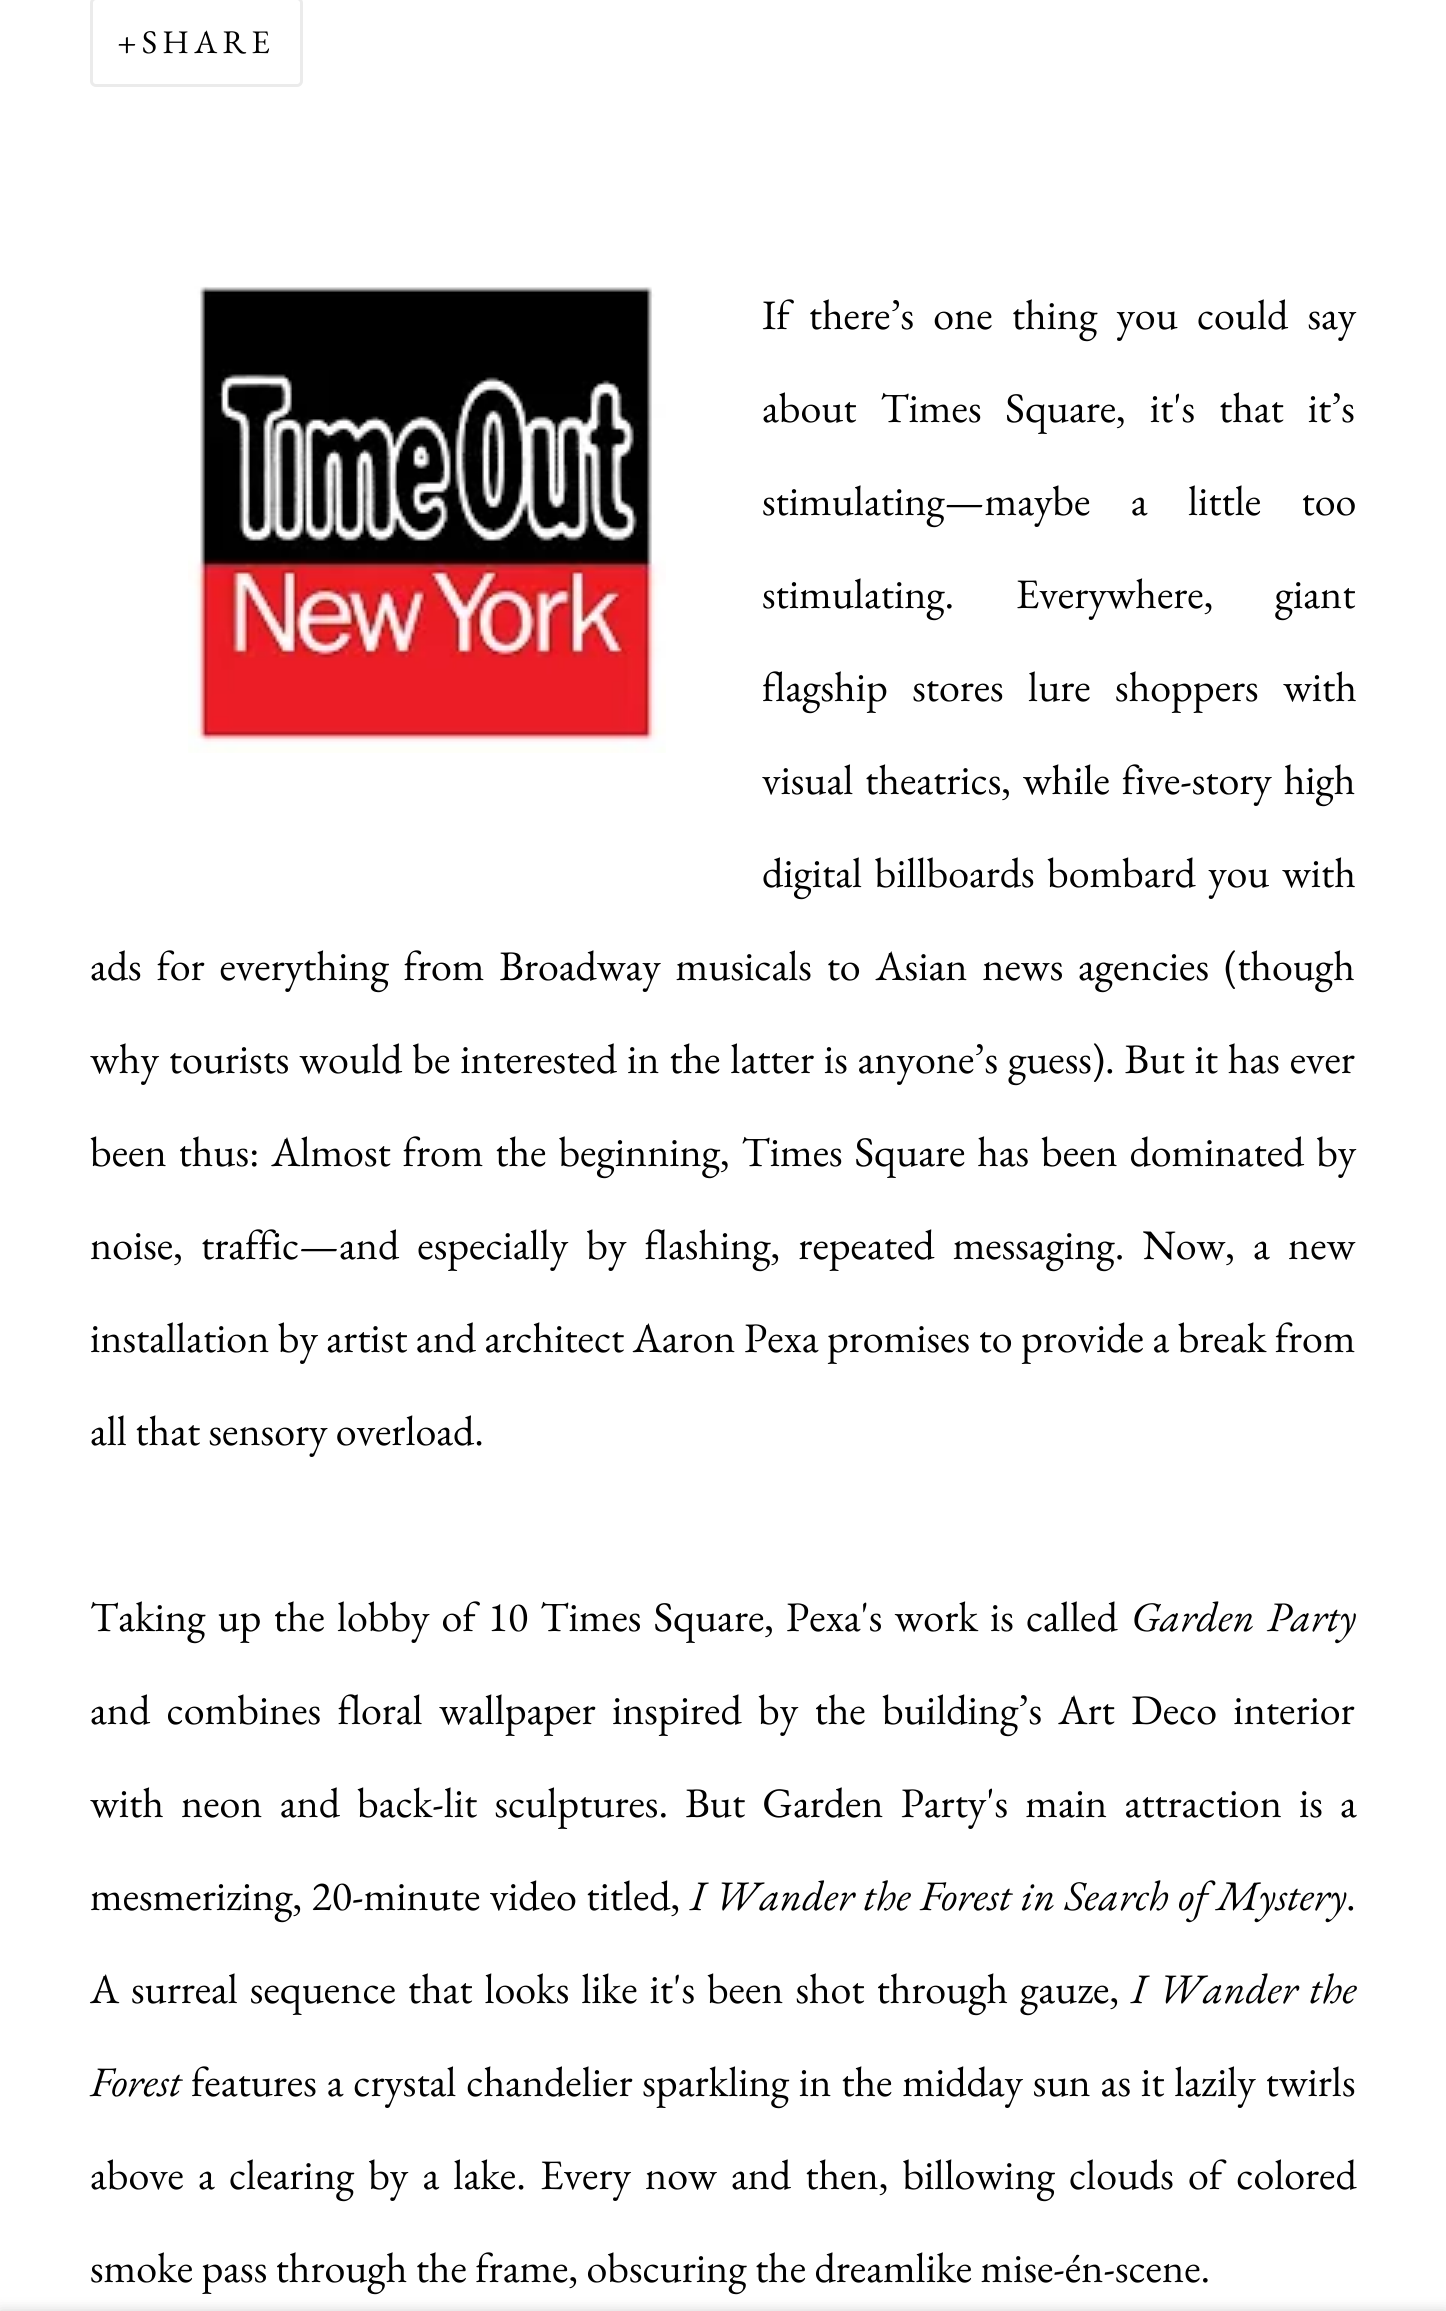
import math
import cairo

surface = cairo.ImageSurface(cairo.FORMAT_RGB24, 1446, 2311)
ctx = cairo.Context(surface)
options = cairo.FontOptions()
options.set_hint_metrics(cairo.HINT_METRICS_OFF)
options.set_hint_style(cairo.HINT_STYLE_NONE)
ctx.set_font_options(options)
ctx.set_miter_limit(4)


def set_color(code):
    ctx.set_source_rgb(*(v / 255 for v in bytes.fromhex(code[-6:])))


def draw_text(x, y, s, family, size, color, bold=False, italic=False):
    ctx.select_font_face(family, cairo.FONT_SLANT_ITALIC if italic else cairo.FONT_SLANT_NORMAL, cairo.FONT_WEIGHT_BOLD if bold else cairo.FONT_WEIGHT_NORMAL)
    ctx.set_font_size(size)
    set_color(color)
    ctx.move_to(x, y)
    ctx.show_text(s)


def draw_spaced(x, y, s, letter, word):
    ctx.move_to(x, y)
    for ch in s:
        ctx.show_text(ch)
        ctx.rel_move_to(letter + word * (ch == ' '), 0)


def rounded_rect(x, y, w, h, r):
    ctx.new_sub_path()
    for i, (u, v) in enumerate([(x + w - r, y + h - r), (x + r, y + h - r), (x + r, y + r), (x + w - r, y + r)]):
        ctx.arc(u, v, r, i * math.pi / 2, (i + 1) * math.pi / 2)
    ctx.close_path()


def draw_shadow(x, y, w, h, r, blur, alpha):
    ctx.push_group_with_content(cairo.CONTENT_ALPHA)
    ctx.set_operator(cairo.OPERATOR_SOURCE)
    for i in range(15, -16, -2):
        e = blur * i / 6
        if min(w, h) + 2 * e > 0:
            ctx.set_source_rgba(0, 0, 0, alpha * math.erfc((i - 1) / 8.5) / 2)
            rounded_rect(x - e, y - e, w + 2 * e, h + 2 * e, max(0, min(r + e + blur * .6, min(w, h) / 2 + e)))
            ctx.fill()
    ctx.mask(ctx.pop_group())


def draw_image(path, x, y, w, h):
    ctx.save()
    ctx.set_source_surface(cairo.ImageSurface.create_from_png(path), x, y)
    ctx.rectangle(x, y, w, h)
    ctx.fill()
    ctx.restore()


set_color("#ffffff")
ctx.paint()
rounded_rect(91.5, -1.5, 210, 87, 4.5)
set_color("#ebebeb")
ctx.set_line_width(3)
ctx.stroke()
ctx.select_font_face("EB Garamond")
ctx.set_font_size(33)
set_color("#010101")
draw_spaced(117, 53, "+SHARE", 5.25, 0)
draw_image("assets/img1.png", 188, 286, 478, 467)
ctx.set_font_size(42)
draw_spaced(762, 329, "If there’s one thing you could say", 0, 10.75)
draw_spaced(762, 422, "about Times Square, it's that it’s", 0, 15.5)
draw_spaced(762, 515, "stimulating—maybe a little too", 0, 32)
draw_spaced(762, 608, "stimulating. Everywhere, giant", 0, 53)
draw_spaced(762, 701, "flagship stores lure shoppers with", 0, 16)
draw_spaced(762, 794, "visual theatrics, while five-story high", 0, 3.5)
draw_spaced(762, 887, "digital billboards bombard you with", 0, 4)
draw_spaced(90, 980, "ads for everything from Broadway musicals to Asian news agencies (though", 0, 6.5)
draw_spaced(90, 1073, "why tourists would be interested in the latter is anyone’s guess). But it has ever", 0, 1.5)
draw_spaced(90, 1166, "been thus: Almost from the beginning, Times Square has been dominated by", 0, 3.5)
draw_spaced(90, 1259, "noise, traffic—and especially by flashing, repeated messaging. Now, a new", 0, 9.75)
draw_spaced(90, 1352, "installation by artist and architect Aaron Pexa promises to provide a break from", 0, 0.1)
draw_text(90, 1445, "all that sensory overload.", "EB Garamond", 42, "#010101")
draw_spaced(90, 1631, "Taking up the lobby of 10 Times Square, Pexa's work is called", 0, 3.75)
ctx.select_font_face("EB Garamond", cairo.FONT_SLANT_ITALIC)
draw_spaced(1131, 1631, "Garden Party", 0, 3.75)
ctx.select_font_face("EB Garamond")
draw_spaced(90, 1724, "and combines floral wallpaper inspired by the building’s Art Deco interior", 0, 8)
draw_spaced(90, 1817, "with neon and back-lit sculptures. But Garden Party's main attraction is a", 0, 8.75)
draw_spaced(90, 1910, "mesmerizing, 20-minute video titled,", 0, 1)
ctx.select_font_face("EB Garamond", cairo.FONT_SLANT_ITALIC)
draw_spaced(690, 1910, "I Wander the Forest in Search of Mystery", 0, 1)
draw_text(1346, 1910, ".", "EB Garamond", 42, "#010101")
draw_spaced(90, 2003, "A surreal sequence that looks like it's been shot through gauze,", 0, 3.5)
ctx.select_font_face("EB Garamond", cairo.FONT_SLANT_ITALIC)
draw_spaced(1131, 2003, "I Wander the", 0, 3.5)
draw_text(90, 2096, "Forest", "EB Garamond", 42, "#010101", italic=True)
ctx.select_font_face("EB Garamond")
draw_spaced(191, 2096, "features a crystal chandelier sparkling in the midday sun as it lazily twirls", 0, 1.5)
draw_spaced(90, 2189, "above a clearing by a lake. Every now and then, billowing clouds of colored", 0, 5.75)
draw_text(90, 2282, "smoke pass through the frame, obscuring the dreamlike mise-én-scene.", "EB Garamond", 42, "#010101")
set_color("#000000")
draw_shadow(0, 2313, 1446, 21, 0, 7.5, 0.23)
surface.write_to_png("output.png")
